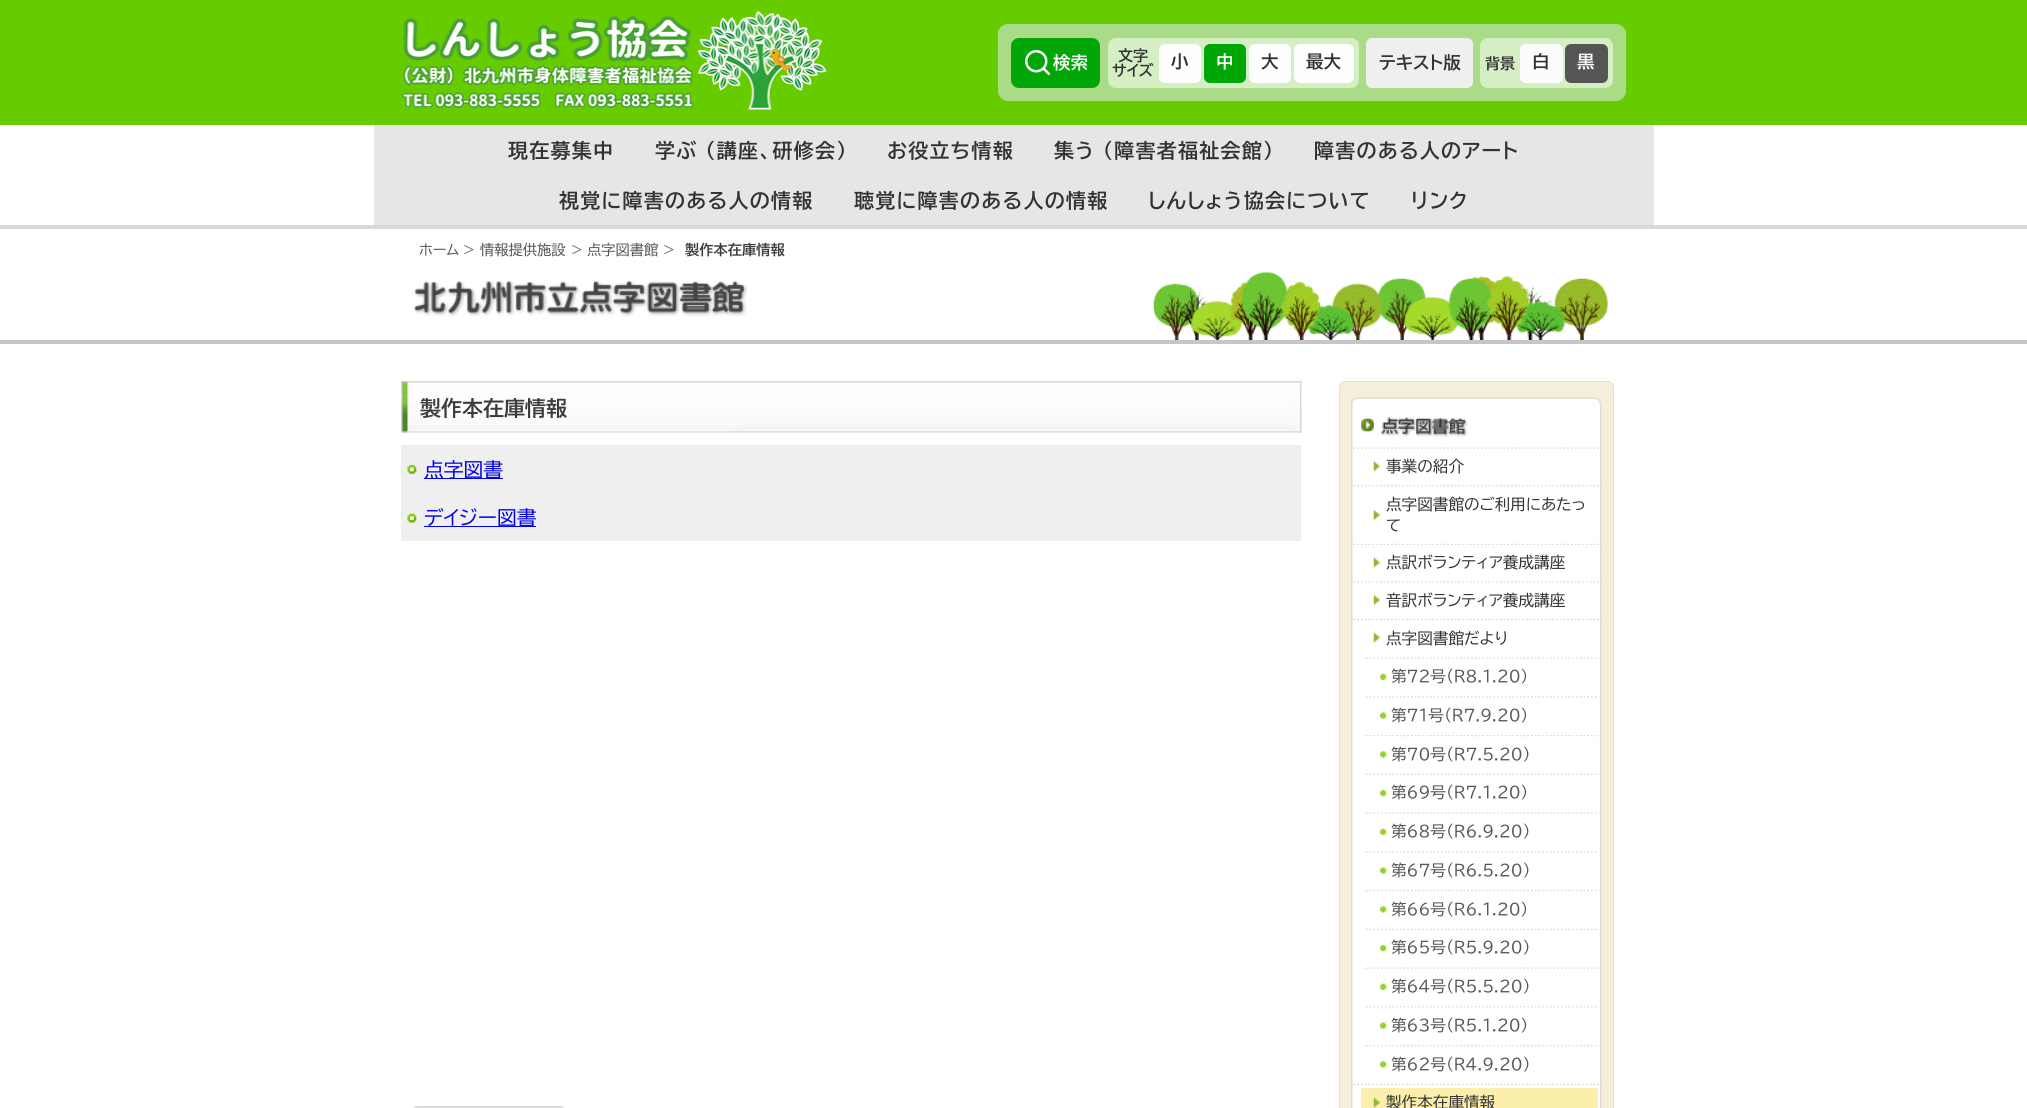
import math
import cairo

surface = cairo.ImageSurface(cairo.FORMAT_RGB24, 2027, 1108)
ctx = cairo.Context(surface)
options = cairo.FontOptions()
options.set_hint_metrics(cairo.HINT_METRICS_OFF)
options.set_hint_style(cairo.HINT_STYLE_NONE)
ctx.set_font_options(options)
ctx.set_miter_limit(4)


def set_color(code):
    ctx.set_source_rgb(*(v / 255 for v in bytes.fromhex(code[-6:])))


def draw_text(x, y, s, family, size, color, bold=False, italic=False):
    ctx.select_font_face(family, cairo.FONT_SLANT_ITALIC if italic else cairo.FONT_SLANT_NORMAL, cairo.FONT_WEIGHT_BOLD if bold else cairo.FONT_WEIGHT_NORMAL)
    ctx.set_font_size(size)
    set_color(color)
    ctx.move_to(x, y)
    ctx.show_text(s)


def draw_spaced(x, y, s, letter, word):
    ctx.move_to(x, y)
    for ch in s:
        ctx.show_text(ch)
        ctx.rel_move_to(letter + word * (ch == ' '), 0)


def fill_rect(x, y, w, h, color):
    set_color(color)
    ctx.rectangle(x, y, w, h)
    ctx.fill()


def rounded_rect(x, y, w, h, r):
    ctx.new_sub_path()
    for i, (u, v) in enumerate([(x + w - r, y + h - r), (x + r, y + h - r), (x + r, y + r), (x + w - r, y + r)]):
        ctx.arc(u, v, r, i * math.pi / 2, (i + 1) * math.pi / 2)
    ctx.close_path()


def draw_image(path, x, y, w, h):
    ctx.save()
    ctx.set_source_surface(cairo.ImageSurface.create_from_png(path), x, y)
    ctx.rectangle(x, y, w, h)
    ctx.fill()
    ctx.restore()


set_color("#ffffff")
ctx.paint()
fill_rect(0, 0, 2027, 125, "#66cc00")
draw_image("assets/img1.png", 401, 10, 426, 100)
set_color("#aadc88")
rounded_rect(998, 24, 628, 77, 10)
ctx.fill()
set_color("#01a706")
rounded_rect(1011, 38, 89, 50, 8)
ctx.fill()
draw_image("assets/img2.png", 1025, 50, 26, 26)
draw_text(1053, 69, "検索", "BIZ UDPGothic", 17.5, "#ffffff", bold=True)
set_color("#d5eec4")
rounded_rect(1108, 38, 251, 50, 8)
ctx.fill()
draw_text(1118, 61, "文字", "BIZ UDPGothic", 15, "#333333", bold=True)
draw_text(1112, 76, "サイズ", "BIZ UDPGothic", 15, "#333333", bold=True)
set_color("#fefefe")
rounded_rect(1159, 44, 42, 39, 6)
ctx.fill()
draw_text(1171, 68, "小", "BIZ UDPGothic", 17.5, "#333333", bold=True)
set_color("#01a706")
rounded_rect(1204, 44, 42, 39, 6)
ctx.fill()
draw_text(1216, 68, "中", "BIZ UDPGothic", 17.5, "#ffffff", bold=True)
set_color("#fefefe")
rounded_rect(1249, 44, 42, 39, 6)
ctx.fill()
draw_text(1261, 68, "大", "BIZ UDPGothic", 17.5, "#333333", bold=True)
set_color("#fefefe")
rounded_rect(1294, 44, 60, 39, 6)
ctx.fill()
draw_text(1306, 68, "最大", "BIZ UDPGothic", 17.5, "#333333", bold=True)
set_color("#efefef")
rounded_rect(1366, 38, 107, 50, 6)
ctx.fill()
draw_text(1379, 69, "テキスト版", "BIZ UDPGothic", 17.5, "#333333", bold=True)
set_color("#d5eec4")
rounded_rect(1480, 38, 133, 50, 8)
ctx.fill()
draw_text(1485, 69, "背景", "BIZ UDPGothic", 15, "#333333", bold=True)
set_color("#fcfcfc")
rounded_rect(1520, 44, 43, 39, 6)
ctx.fill()
draw_text(1532, 68, "白", "BIZ UDPGothic", 17.5, "#333333", bold=True)
set_color("#555555")
rounded_rect(1565, 44, 43, 39, 6)
ctx.fill()
draw_text(1577, 68, "黒", "BIZ UDPGothic", 17.5, "#ffffff", bold=True)
fill_rect(0, 225, 2027, 4, "#d9d9d9")
fill_rect(374, 125, 1280, 100, "#e6e6e6")
ctx.set_font_size(20)
set_color("#333333")
draw_spaced(508, 158, "現在募集中", 1.25, 0)
draw_spaced(655, 158, "学ぶ （講座、研修会）", 1.25, 0)
draw_spaced(887, 158, "お役立ち情報", 1.25, 0)
draw_spaced(1054, 158, "集う （障害者福祉会館）", 1.25, 0)
draw_spaced(1314, 158, "障害のある人のアート", 1.25, 0)
draw_spaced(559, 208, "視覚に障害のある人の情報", 1.25, 0)
draw_spaced(854, 208, "聴覚に障害のある人の情報", 1.25, 0)
draw_spaced(1148, 208, "しんしょう協会について", 1.25, 0)
draw_spaced(1411, 208, "リンク", 1.25, 0)
draw_text(419, 255, "ホーム", "BIZ UDPGothic", 14.25, "#555555")
draw_text(463, 255, ">", "BIZ UDPGothic", 14.25, "#666666")
draw_text(480, 255, "情報提供施設", "BIZ UDPGothic", 14.25, "#555555")
draw_text(571, 255, ">", "BIZ UDPGothic", 14.25, "#666666")
draw_text(587, 255, "点字図書館", "BIZ UDPGothic", 14.25, "#555555")
draw_text(663, 255, ">", "BIZ UDPGothic", 14.25, "#666666")
draw_text(685, 255, "製作本在庫情報", "BIZ UDPGothic", 14.25, "#3c3c3c", bold=True)
fill_rect(0, 340, 2027, 4, "#c6c6c6")
draw_image("assets/img3.png", 413, 272, 1195, 68)
draw_image("assets/img4.png", 401, 381, 901, 52)
draw_image("assets/img5.png", 401, 381, 901, 7)
draw_image("assets/img6.png", 401, 403, 901, 30)
draw_text(420, 416, "製作本在庫情報", "BIZ UDPGothic", 21, "#3c3c3c", bold=True)
fill_rect(401, 445, 900, 96, "#efefef")
draw_image("assets/img7.png", 407, 465, 10, 9)
fill_rect(424, 478, 79, 1, "#0000ee")
draw_text(424, 477, "点字図書", "BIZ UDPGothic", 19.75, "#0000ee")
draw_image("assets/img8.png", 407, 513, 10, 10)
fill_rect(424, 526, 112, 1, "#0000ee")
draw_text(424, 525, "デイジー図書", "BIZ UDPGothic", 19.75, "#0000ee")
draw_image("assets/img9.png", 413, 1106, 151, 2)
set_color("#f5eedb")
rounded_rect(1339.5, 381.5, 274, 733, 5.5)
ctx.fill_preserve()
set_color("#eddfbc")
ctx.set_line_width(1)
ctx.stroke()
draw_image("assets/img10.png", 1351, 397, 251, 7)
draw_image("assets/img11.png", 1351, 404, 251, 704)
draw_image("assets/img12.png", 1361, 418, 13, 14)
draw_image("assets/img13.png", 1381, 417, 87, 21)
draw_image("assets/img14.png", 1353, 447, 249, 2)
draw_image("assets/img15.png", 1373, 461, 7, 11)
draw_text(1386, 472, "事業の紹介", "BIZ UDPGothic", 15.6, "#333333")
draw_image("assets/img16.png", 1351, 485, 251, 2)
draw_image("assets/img17.png", 1373, 510, 7, 10)
draw_text(1386, 510, "点字図書館のご利用にあたっ", "BIZ UDPGothic", 15.6, "#333333")
draw_text(1386, 531, "て", "BIZ UDPGothic", 15.6, "#333333")
draw_image("assets/img18.png", 1351, 543, 251, 2)
draw_image("assets/img19.png", 1373, 557, 7, 11)
draw_text(1386, 568, "点訳ボランティア養成講座", "BIZ UDPGothic", 15.6, "#333333")
draw_image("assets/img20.png", 1353, 581, 249, 2)
draw_image("assets/img17.png", 1373, 595, 7, 10)
draw_text(1386, 606, "音訳ボランティア養成講座", "BIZ UDPGothic", 15.6, "#333333")
draw_image("assets/img18.png", 1351, 618, 251, 2)
draw_image("assets/img19.png", 1373, 632, 7, 11)
draw_text(1386, 644, "点字図書館だより", "BIZ UDPGothic", 15.6, "#333333")
draw_image("assets/img21.png", 1363, 657, 236, 2)
draw_image("assets/img22.png", 1380, 673, 7, 7)
draw_text(1391, 682, "第７２号（R8.1.20）", "BIZ UDPGothic", 15.6, "#555555")
draw_image("assets/img23.png", 1363, 696, 236, 2)
draw_image("assets/img24.png", 1380, 712, 7, 7)
draw_text(1391, 721, "第７１号（R7.9.20）", "BIZ UDPGothic", 15.6, "#555555")
draw_image("assets/img25.png", 1363, 735, 236, 2)
draw_image("assets/img26.png", 1380, 751, 7, 7)
draw_text(1391, 760, "第７０号（R7.5.20）", "BIZ UDPGothic", 15.6, "#555555")
draw_image("assets/img27.png", 1363, 773, 236, 2)
draw_image("assets/img28.png", 1380, 790, 7, 7)
draw_text(1391, 798, "第６９号（R7.1.20）", "BIZ UDPGothic", 15.6, "#555555")
draw_image("assets/img21.png", 1363, 812, 236, 2)
draw_image("assets/img22.png", 1380, 828, 7, 7)
draw_text(1391, 837, "第６８号（R6.9.20）", "BIZ UDPGothic", 15.6, "#555555")
draw_image("assets/img23.png", 1363, 851, 236, 2)
draw_image("assets/img24.png", 1380, 867, 7, 7)
draw_text(1391, 876, "第６７号（R6.5.20）", "BIZ UDPGothic", 15.6, "#555555")
draw_image("assets/img25.png", 1363, 890, 236, 2)
draw_image("assets/img26.png", 1380, 906, 7, 7)
draw_text(1391, 915, "第６６号（R6.1.20）", "BIZ UDPGothic", 15.6, "#555555")
draw_image("assets/img27.png", 1363, 928, 236, 2)
draw_image("assets/img28.png", 1380, 945, 7, 7)
draw_text(1391, 953, "第６５号（R5.9.20）", "BIZ UDPGothic", 15.6, "#555555")
draw_image("assets/img21.png", 1363, 967, 236, 2)
draw_image("assets/img22.png", 1380, 983, 7, 7)
draw_text(1391, 992, "第６４号（R5.5.20）", "BIZ UDPGothic", 15.6, "#555555")
draw_image("assets/img23.png", 1363, 1006, 236, 2)
draw_image("assets/img29.png", 1380, 1022, 7, 7)
draw_text(1391, 1031, "第６３号（R5.1.20）", "BIZ UDPGothic", 15.6, "#555555")
draw_image("assets/img25.png", 1363, 1045, 236, 2)
draw_image("assets/img26.png", 1380, 1061, 7, 7)
draw_text(1391, 1070, "第６２号（R4.9.20）", "BIZ UDPGothic", 15.6, "#555555")
draw_image("assets/img18.png", 1351, 1083, 251, 2)
fill_rect(1361, 1088, 237, 20, "#fceead")
draw_image("assets/img30.png", 1373, 1097, 7, 11)
draw_text(1386, 1108, "製作本在庫情報", "BIZ UDPGothic", 15.6, "#333333")
surface.write_to_png("output.png")
